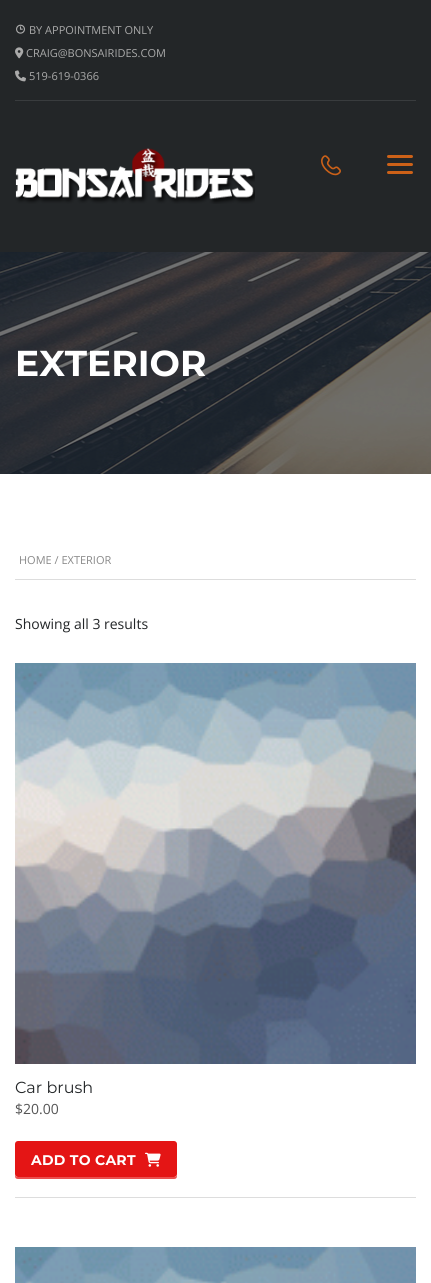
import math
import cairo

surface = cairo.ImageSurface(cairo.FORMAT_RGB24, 431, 1283)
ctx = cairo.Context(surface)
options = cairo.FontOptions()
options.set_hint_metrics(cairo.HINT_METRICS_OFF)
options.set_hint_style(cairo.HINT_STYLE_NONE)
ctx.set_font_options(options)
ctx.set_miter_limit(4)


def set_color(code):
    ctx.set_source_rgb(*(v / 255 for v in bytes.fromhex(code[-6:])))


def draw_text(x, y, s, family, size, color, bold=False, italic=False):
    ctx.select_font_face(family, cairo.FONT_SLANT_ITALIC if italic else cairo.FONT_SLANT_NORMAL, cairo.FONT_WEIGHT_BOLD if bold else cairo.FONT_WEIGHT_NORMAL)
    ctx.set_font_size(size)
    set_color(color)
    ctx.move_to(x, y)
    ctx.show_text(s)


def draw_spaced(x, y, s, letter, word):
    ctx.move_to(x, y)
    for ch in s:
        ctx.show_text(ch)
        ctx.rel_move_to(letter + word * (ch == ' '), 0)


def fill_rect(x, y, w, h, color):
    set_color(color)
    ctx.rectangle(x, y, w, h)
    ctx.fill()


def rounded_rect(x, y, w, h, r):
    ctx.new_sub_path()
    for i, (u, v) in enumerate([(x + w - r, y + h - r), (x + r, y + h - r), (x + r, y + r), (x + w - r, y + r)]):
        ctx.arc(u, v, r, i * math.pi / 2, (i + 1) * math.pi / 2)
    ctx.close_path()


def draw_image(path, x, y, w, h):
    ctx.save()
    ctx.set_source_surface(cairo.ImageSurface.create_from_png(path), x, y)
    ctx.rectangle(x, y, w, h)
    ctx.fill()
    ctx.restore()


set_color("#ffffff")
ctx.paint()
fill_rect(0, 0, 431, 252, "#232628")
fill_rect(15, 100, 401, 1, "#393c3e")
draw_image("assets/img1.png", 16, 24, 9, 10)
draw_text(29, 34, "BY APPOINTMENT ONLY", "Open Sans", 11, "#aaaaaa")
draw_image("assets/img2.png", 15, 47, 9, 12)
draw_text(26, 57, "CRAIG@BONSAIRIDES.COM", "Open Sans", 11, "#aaaaaa")
draw_image("assets/img3.png", 15, 70, 11, 12)
draw_text(29, 80, "519-619-0366", "Open Sans", 11, "#aaaaaa")
draw_image("assets/img4.png", 15, 148, 240, 56)
draw_image("assets/img5.png", 321, 155, 20, 21)
set_color("#cc6118")
rounded_rect(387, 155, 26, 3, 1.5)
ctx.fill()
rounded_rect(387, 163, 26, 3, 1.5)
ctx.fill()
rounded_rect(387, 171, 26, 3, 1.5)
ctx.fill()
draw_image("assets/img6.png", 0, 252, 431, 222)
draw_text(15, 376, "EXTERIOR", "Montserrat", 36, "#ffffff", bold=True)
fill_rect(15, 579, 401, 1, "#dddddd")
draw_text(19, 564, "HOME / EXTERIOR", "Open Sans", 11, "#888888")
draw_text(15, 629, "Showing all 3 results", "Open Sans", 14, "#232628")
fill_rect(15, 1197, 401, 1, "#dddddd")
draw_image("assets/img7.png", 15, 663, 401, 401)
draw_text(15, 1093, "Car brush", "Montserrat", 16, "#232628")
draw_text(15, 1114, "$20.00", "Open Sans", 14, "#555555")
set_color("#eb5050")
ctx.new_path()
ctx.move_to(15, 1174)
ctx.line_to(15, 1176)
ctx.curve_to(15, 1178, 16, 1179, 18, 1179)
ctx.line_to(174, 1179)
ctx.curve_to(176, 1179, 177, 1178, 177, 1176)
ctx.line_to(177, 1174)
ctx.curve_to(177, 1176, 176, 1177, 174, 1177)
ctx.line_to(18, 1177)
ctx.curve_to(16, 1177, 15, 1176, 15, 1174)
ctx.close_path()
ctx.fill()
set_color("#e41515")
rounded_rect(15, 1141, 162, 36, 3)
ctx.fill()
ctx.select_font_face("Montserrat", cairo.FONT_SLANT_NORMAL, cairo.FONT_WEIGHT_BOLD)
set_color("#ffffff")
draw_spaced(31, 1165, "ADD TO CART", 0.25, 0)
draw_image("assets/img8.png", 145, 1152, 16, 15)
draw_image("assets/img9.png", 15, 1247, 401, 36)
surface.write_to_png("output.png")
